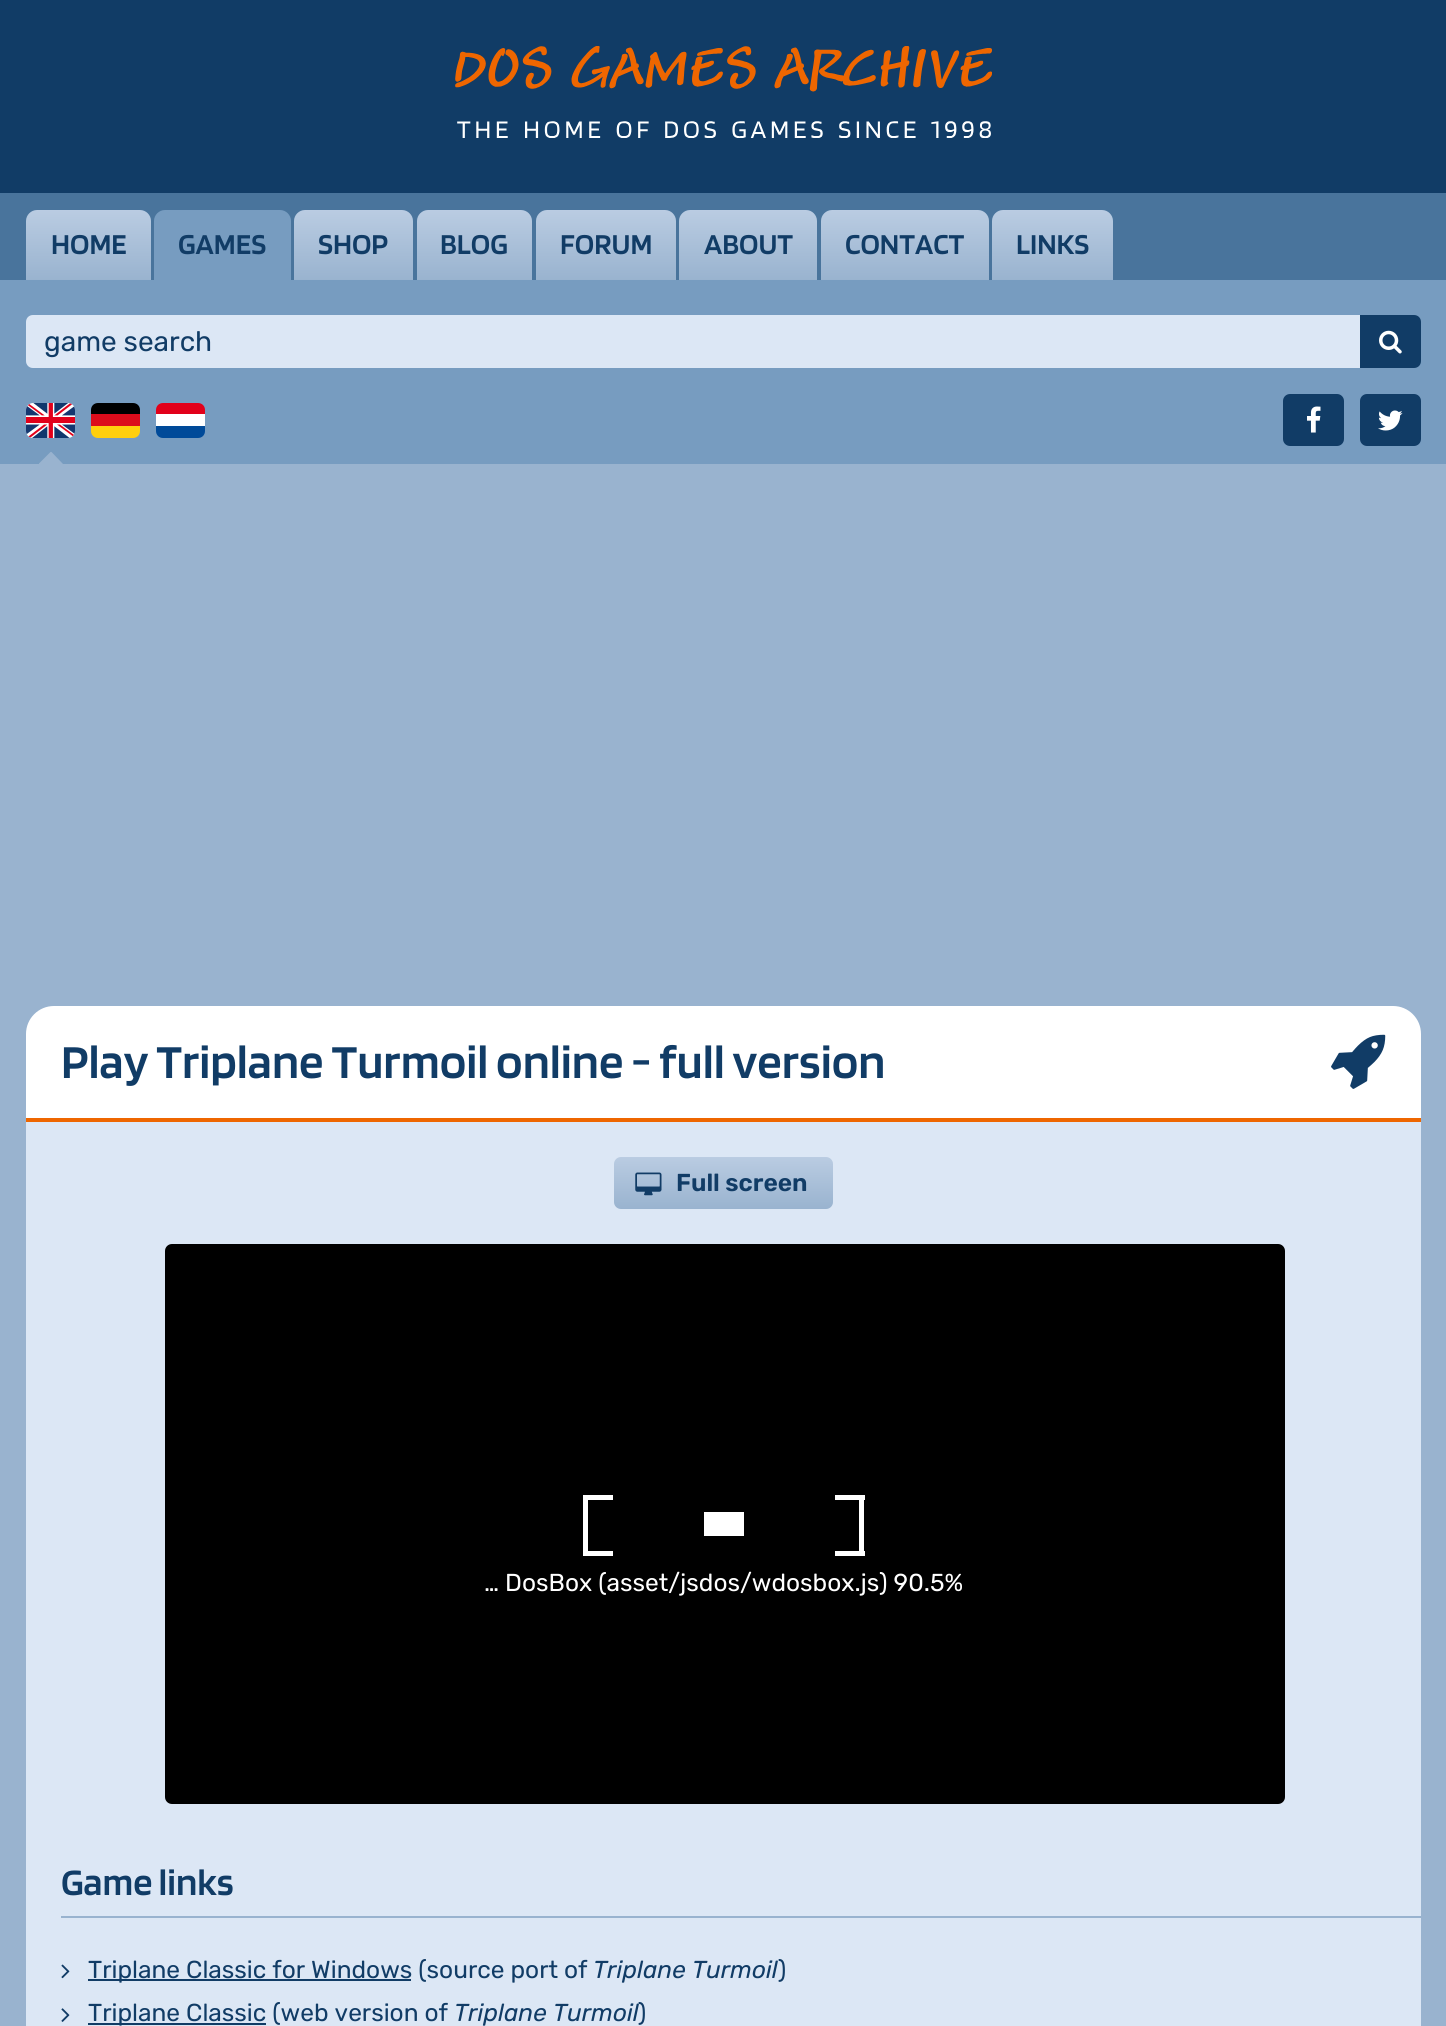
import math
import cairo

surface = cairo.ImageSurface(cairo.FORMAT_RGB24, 1446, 2026)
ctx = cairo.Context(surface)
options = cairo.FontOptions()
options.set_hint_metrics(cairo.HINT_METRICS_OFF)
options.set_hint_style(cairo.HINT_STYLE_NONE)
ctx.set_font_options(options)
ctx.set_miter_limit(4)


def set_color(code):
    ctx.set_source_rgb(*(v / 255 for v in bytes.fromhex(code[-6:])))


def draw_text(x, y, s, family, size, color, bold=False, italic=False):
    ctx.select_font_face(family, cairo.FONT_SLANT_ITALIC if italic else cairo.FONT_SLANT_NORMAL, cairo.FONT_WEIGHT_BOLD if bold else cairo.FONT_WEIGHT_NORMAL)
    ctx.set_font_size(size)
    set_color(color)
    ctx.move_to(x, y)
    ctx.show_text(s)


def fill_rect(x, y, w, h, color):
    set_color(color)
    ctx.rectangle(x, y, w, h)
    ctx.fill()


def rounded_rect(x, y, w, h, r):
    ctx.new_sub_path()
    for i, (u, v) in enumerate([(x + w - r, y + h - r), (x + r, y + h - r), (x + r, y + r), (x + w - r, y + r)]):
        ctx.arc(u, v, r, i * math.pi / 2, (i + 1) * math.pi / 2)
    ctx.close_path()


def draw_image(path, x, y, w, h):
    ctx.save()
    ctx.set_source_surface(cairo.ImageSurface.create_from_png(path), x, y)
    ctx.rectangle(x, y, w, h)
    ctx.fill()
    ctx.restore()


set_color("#99b3cf")
ctx.paint()
fill_rect(0, 0, 1446, 193, "#113c66")
draw_image("assets/img1.png", 455, 46, 537, 92)
fill_rect(0, 193, 1446, 87, "#49749c")
gradient = cairo.LinearGradient(88, 210, 88, 280)
gradient.add_color_stop_rgba(0, 0.729, 0.8, 0.886, 1)
gradient.add_color_stop_rgba(1, 0.6, 0.702, 0.812, 1)
ctx.set_source(gradient)
ctx.new_path()
ctx.move_to(37, 210)
ctx.line_to(140, 210)
ctx.curve_to(146, 210, 151, 215, 151, 221)
ctx.line_to(151, 280)
ctx.line_to(26, 280)
ctx.line_to(26, 221)
ctx.curve_to(26, 215, 31, 210, 37, 210)
ctx.close_path()
ctx.fill()
draw_text(51, 254, "HOME", "Blinker SemiBold", 30, "#113c66")
set_color("#779cc0")
ctx.new_path()
ctx.move_to(165, 210)
ctx.line_to(280, 210)
ctx.curve_to(286, 210, 291, 215, 291, 221)
ctx.line_to(291, 280)
ctx.line_to(154, 280)
ctx.line_to(154, 221)
ctx.curve_to(154, 215, 159, 210, 165, 210)
ctx.close_path()
ctx.fill()
draw_text(178, 254, "GAMES", "Blinker SemiBold", 30, "#113c66")
gradient = cairo.LinearGradient(354, 210, 354, 280)
gradient.add_color_stop_rgba(0, 0.729, 0.8, 0.886, 1)
gradient.add_color_stop_rgba(1, 0.6, 0.702, 0.812, 1)
ctx.set_source(gradient)
ctx.new_path()
ctx.move_to(305, 210)
ctx.line_to(402, 210)
ctx.curve_to(408, 210, 413, 215, 413, 221)
ctx.line_to(413, 280)
ctx.line_to(294, 280)
ctx.line_to(294, 221)
ctx.curve_to(294, 215, 299, 210, 305, 210)
ctx.close_path()
ctx.fill()
draw_text(318, 254, "SHOP", "Blinker SemiBold", 30, "#113c66")
gradient = cairo.LinearGradient(474, 210, 474, 280)
gradient.add_color_stop_rgba(0, 0.729, 0.8, 0.886, 1)
gradient.add_color_stop_rgba(1, 0.6, 0.702, 0.812, 1)
ctx.set_source(gradient)
ctx.new_path()
ctx.move_to(428, 210)
ctx.line_to(521, 210)
ctx.curve_to(527, 210, 532, 215, 532, 221)
ctx.line_to(532, 280)
ctx.line_to(417, 280)
ctx.line_to(417, 221)
ctx.curve_to(417, 215, 422, 210, 428, 210)
ctx.close_path()
ctx.fill()
draw_text(440, 254, "BLOG", "Blinker SemiBold", 30, "#113c66")
gradient = cairo.LinearGradient(606, 210, 606, 280)
gradient.add_color_stop_rgba(0, 0.729, 0.8, 0.886, 1)
gradient.add_color_stop_rgba(1, 0.6, 0.702, 0.812, 1)
ctx.set_source(gradient)
ctx.new_path()
ctx.move_to(547, 210)
ctx.line_to(665, 210)
ctx.curve_to(671, 210, 676, 215, 676, 221)
ctx.line_to(676, 280)
ctx.line_to(536, 280)
ctx.line_to(536, 221)
ctx.curve_to(536, 215, 541, 210, 547, 210)
ctx.close_path()
ctx.fill()
draw_text(560, 254, "FORUM", "Blinker SemiBold", 30, "#113c66")
gradient = cairo.LinearGradient(748, 210, 748, 280)
gradient.add_color_stop_rgba(0, 0.729, 0.8, 0.886, 1)
gradient.add_color_stop_rgba(1, 0.6, 0.702, 0.812, 1)
ctx.set_source(gradient)
ctx.new_path()
ctx.move_to(690, 210)
ctx.line_to(806, 210)
ctx.curve_to(812, 210, 817, 215, 817, 221)
ctx.line_to(817, 280)
ctx.line_to(679, 280)
ctx.line_to(679, 221)
ctx.curve_to(679, 215, 684, 210, 690, 210)
ctx.close_path()
ctx.fill()
draw_text(704, 254, "ABOUT", "Blinker SemiBold", 30, "#113c66")
gradient = cairo.LinearGradient(905, 210, 905, 280)
gradient.add_color_stop_rgba(0, 0.729, 0.8, 0.886, 1)
gradient.add_color_stop_rgba(1, 0.6, 0.702, 0.812, 1)
ctx.set_source(gradient)
ctx.new_path()
ctx.move_to(832, 210)
ctx.line_to(978, 210)
ctx.curve_to(984, 210, 989, 215, 989, 221)
ctx.line_to(989, 280)
ctx.line_to(821, 280)
ctx.line_to(821, 221)
ctx.curve_to(821, 215, 826, 210, 832, 210)
ctx.close_path()
ctx.fill()
draw_text(845, 254, "CONTACT", "Blinker SemiBold", 30, "#113c66")
gradient = cairo.LinearGradient(1053, 210, 1053, 280)
gradient.add_color_stop_rgba(0, 0.729, 0.8, 0.886, 1)
gradient.add_color_stop_rgba(1, 0.6, 0.702, 0.812, 1)
ctx.set_source(gradient)
ctx.new_path()
ctx.move_to(1003, 210)
ctx.line_to(1102, 210)
ctx.curve_to(1108, 210, 1113, 215, 1113, 221)
ctx.line_to(1113, 280)
ctx.line_to(992, 280)
ctx.line_to(992, 221)
ctx.curve_to(992, 215, 997, 210, 1003, 210)
ctx.close_path()
ctx.fill()
draw_text(1016, 254, "LINKS", "Blinker SemiBold", 30, "#113c66")
fill_rect(0, 280, 1446, 184, "#779cc0")
set_color("#dce7f5")
ctx.new_path()
ctx.move_to(33, 315)
ctx.line_to(1360, 315)
ctx.line_to(1360, 368)
ctx.line_to(33, 368)
ctx.curve_to(29, 368, 26, 365, 26, 361)
ctx.line_to(26, 322)
ctx.curve_to(26, 318, 29, 315, 33, 315)
ctx.close_path()
ctx.fill()
draw_text(44, 351, "game search", "Rubik", 28, "#113c66")
ctx.new_path()
ctx.move_to(1360, 315)
ctx.line_to(1414, 315)
ctx.curve_to(1418, 315, 1421, 318, 1421, 322)
ctx.line_to(1421, 361)
ctx.curve_to(1421, 365, 1418, 368, 1414, 368)
ctx.line_to(1360, 368)
ctx.close_path()
ctx.fill()
draw_image("assets/img2.png", 1379, 330, 23, 24)
ctx.save()
ctx.rectangle(39, 452, 24, 12)
ctx.clip()
set_color("#99b3cf")
ctx.new_path()
ctx.move_to(38.5, 464)
ctx.line_to(51, 451.5)
ctx.line_to(63, 464)
ctx.close_path()
ctx.fill()
ctx.restore()
draw_image("assets/img3.png", 26, 403, 49, 35)
set_color("#000000")
ctx.new_path()
ctx.move_to(98, 403)
ctx.line_to(133, 403)
ctx.curve_to(137, 403, 140, 406, 140, 410)
ctx.line_to(140, 414)
ctx.line_to(91, 414)
ctx.line_to(91, 410)
ctx.curve_to(91, 406, 94, 403, 98, 403)
ctx.close_path()
ctx.fill()
fill_rect(91, 414, 49, 12, "#dc0c1b")
set_color("#ffcf0d")
ctx.new_path()
ctx.move_to(91, 426)
ctx.line_to(140, 426)
ctx.line_to(140, 431)
ctx.curve_to(140, 435, 137, 438, 133, 438)
ctx.line_to(98, 438)
ctx.curve_to(94, 438, 91, 435, 91, 431)
ctx.close_path()
ctx.fill()
set_color("#004a99")
ctx.new_path()
ctx.move_to(156, 426)
ctx.line_to(205, 426)
ctx.line_to(205, 431)
ctx.curve_to(205, 435, 202, 438, 198, 438)
ctx.line_to(163, 438)
ctx.curve_to(159, 438, 156, 435, 156, 431)
ctx.close_path()
ctx.fill()
fill_rect(156, 414, 49, 12, "#ffffff")
set_color("#e2001a")
ctx.new_path()
ctx.move_to(163, 403)
ctx.line_to(198, 403)
ctx.curve_to(202, 403, 205, 406, 205, 410)
ctx.line_to(205, 414)
ctx.line_to(156, 414)
ctx.line_to(156, 410)
ctx.curve_to(156, 406, 159, 403, 163, 403)
ctx.close_path()
ctx.fill()
set_color("#113c66")
rounded_rect(1283, 394, 61, 52, 7)
ctx.fill()
draw_image("assets/img4.png", 1307, 406, 14, 27)
rounded_rect(1360, 394, 61, 52, 7)
ctx.fill()
draw_image("assets/img5.png", 1378, 410, 25, 21)
set_color("#ffffff")
ctx.new_path()
ctx.move_to(54, 1006)
ctx.line_to(1393, 1006)
ctx.curve_to(1408.5, 1006, 1421, 1018.5, 1421, 1034)
ctx.line_to(1421, 1122)
ctx.line_to(26, 1122)
ctx.line_to(26, 1034)
ctx.curve_to(26, 1018.5, 38.5, 1006, 54, 1006)
ctx.close_path()
ctx.fill()
fill_rect(26, 1118, 1395, 4, "#ee6600")
draw_text(61, 1078, "Play Triplane Turmoil online - full version", "Blinker SemiBold", 49, "#113c66")
draw_image("assets/img6.png", 1331, 1034, 55, 55)
fill_rect(26, 1122, 1395, 904, "#dce7f5")
gradient = cairo.LinearGradient(724, 1157, 724, 1209)
gradient.add_color_stop_rgba(0, 0.729, 0.8, 0.886, 1)
gradient.add_color_stop_rgba(1, 0.6, 0.702, 0.812, 1)
ctx.set_source(gradient)
rounded_rect(614, 1157, 219, 52, 7)
ctx.fill()
draw_image("assets/img7.png", 635, 1172, 27, 24)
draw_text(676, 1191, "Full screen", "Rubik SemiBold", 24.5, "#113c66")
set_color("#000000")
rounded_rect(165, 1244, 1120, 560, 7)
ctx.fill()
fill_rect(583, 1495, 30, 5, "#ffffff")
fill_rect(583, 1551, 30, 5, "#ffffff")
fill_rect(583, 1495, 5, 61, "#ffffff")
fill_rect(704, 1512, 40, 24, "#ffffff")
fill_rect(835, 1495, 30, 5, "#ffffff")
fill_rect(859, 1495, 5, 61, "#ffffff")
fill_rect(835, 1551, 30, 5, "#ffffff")
draw_text(484, 1591, "… DosBox (asset/jsdos/wdosbox.js) 90.5%", "Rubik", 24.5, "#ffffff")
fill_rect(61, 1916, 1360, 2, "#99b3cf")
draw_text(61, 1895, "Game links", "Blinker SemiBold", 38.5, "#113c66")
draw_image("assets/img8.png", 61, 1964, 9, 15)
fill_rect(88, 1979, 323, 2, "#113c66")
draw_text(88, 1978, "Triplane Classic for Windows (source port of", "Rubik", 24.5, "#113c66")
draw_text(593, 1978, "Triplane Turmoil", "Rubik", 24.5, "#113c66", italic=True)
draw_text(778, 1978, ")", "Rubik", 24.5, "#113c66")
draw_image("assets/img9.png", 61, 2008, 9, 14)
fill_rect(88, 2023, 178, 2, "#113c66")
draw_text(88, 2021, "Triplane Classic (web version of", "Rubik", 24.5, "#113c66")
draw_text(454, 2021, "Triplane Turmoil", "Rubik", 24.5, "#113c66", italic=True)
draw_text(638, 2021, ")", "Rubik", 24.5, "#113c66")
surface.write_to_png("output.png")
